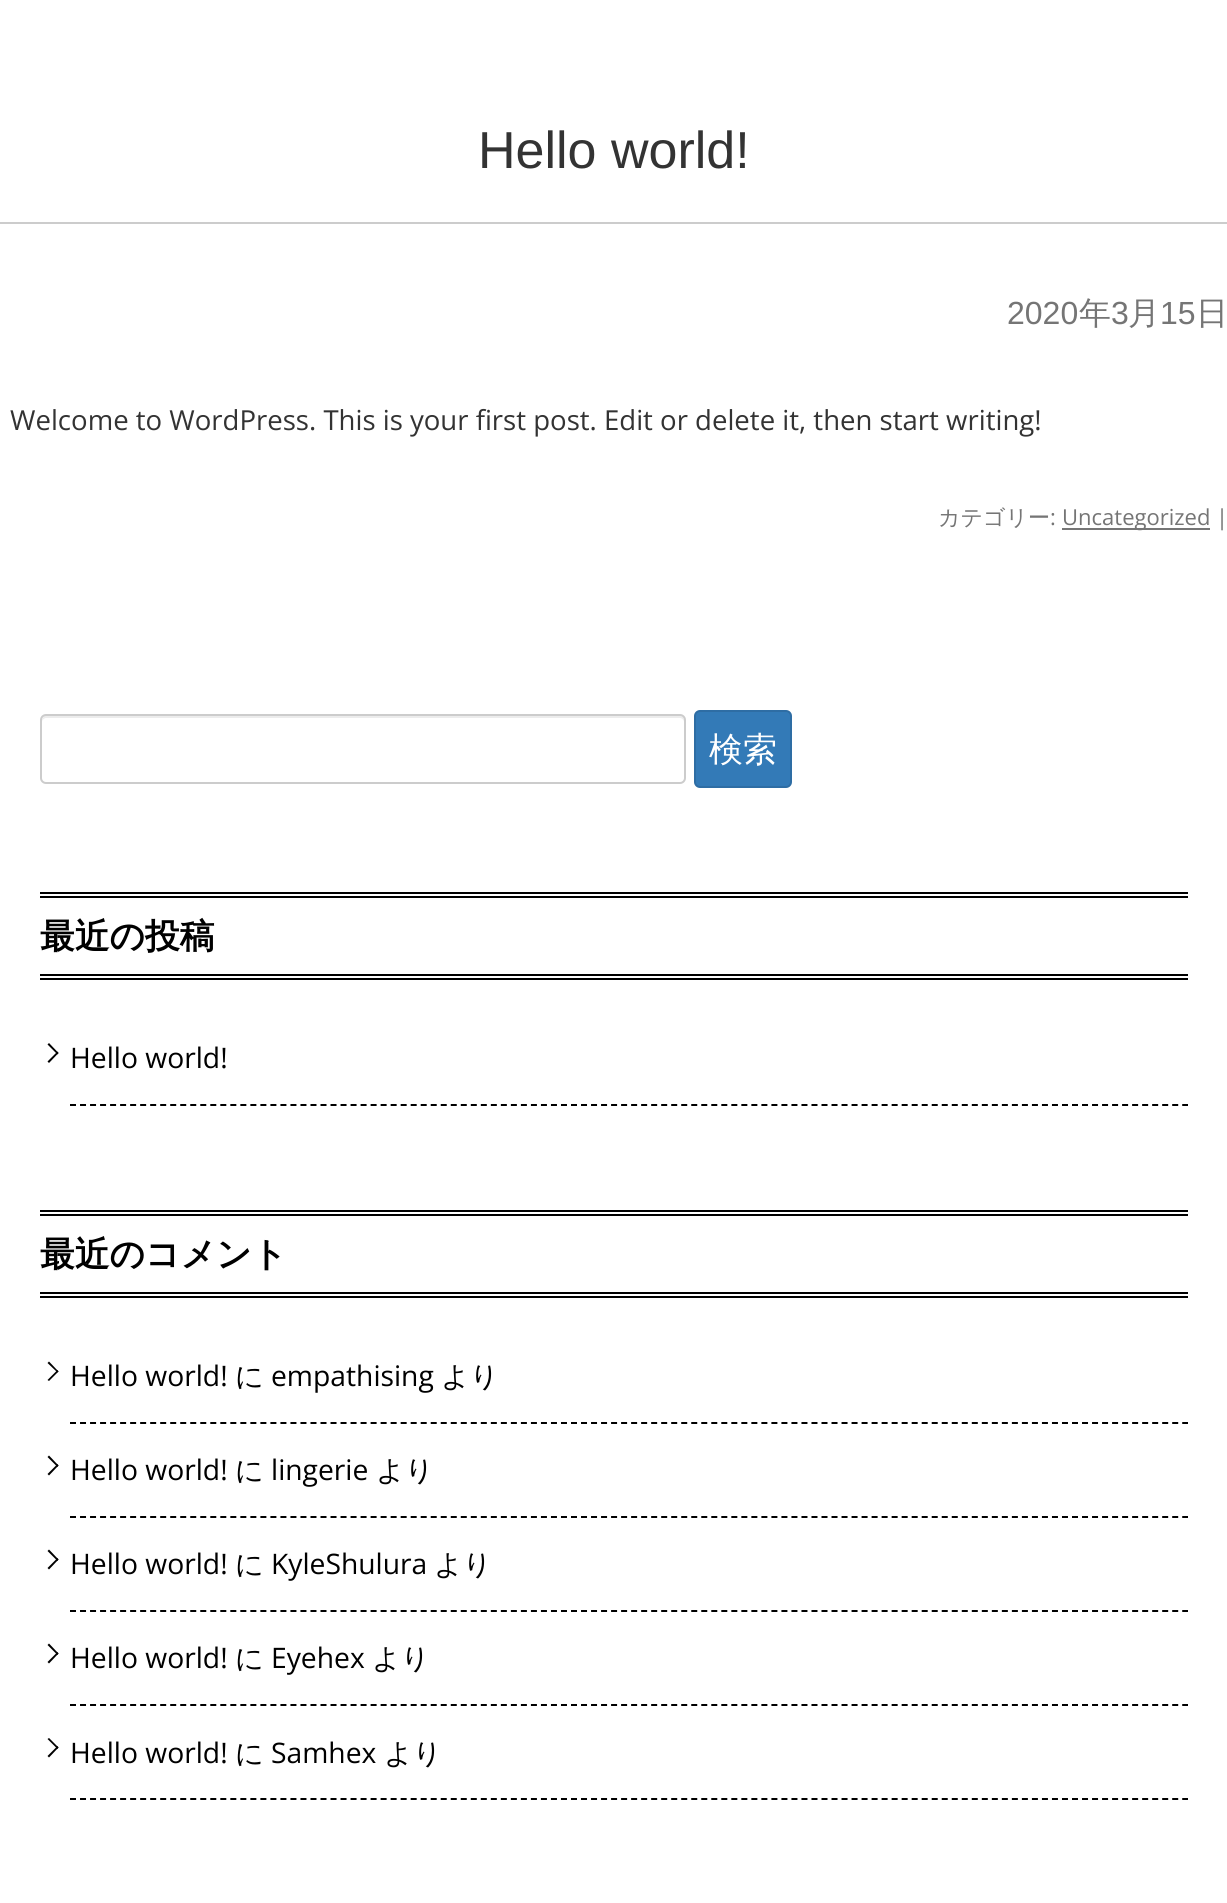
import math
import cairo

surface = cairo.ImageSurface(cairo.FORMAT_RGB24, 1227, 1903)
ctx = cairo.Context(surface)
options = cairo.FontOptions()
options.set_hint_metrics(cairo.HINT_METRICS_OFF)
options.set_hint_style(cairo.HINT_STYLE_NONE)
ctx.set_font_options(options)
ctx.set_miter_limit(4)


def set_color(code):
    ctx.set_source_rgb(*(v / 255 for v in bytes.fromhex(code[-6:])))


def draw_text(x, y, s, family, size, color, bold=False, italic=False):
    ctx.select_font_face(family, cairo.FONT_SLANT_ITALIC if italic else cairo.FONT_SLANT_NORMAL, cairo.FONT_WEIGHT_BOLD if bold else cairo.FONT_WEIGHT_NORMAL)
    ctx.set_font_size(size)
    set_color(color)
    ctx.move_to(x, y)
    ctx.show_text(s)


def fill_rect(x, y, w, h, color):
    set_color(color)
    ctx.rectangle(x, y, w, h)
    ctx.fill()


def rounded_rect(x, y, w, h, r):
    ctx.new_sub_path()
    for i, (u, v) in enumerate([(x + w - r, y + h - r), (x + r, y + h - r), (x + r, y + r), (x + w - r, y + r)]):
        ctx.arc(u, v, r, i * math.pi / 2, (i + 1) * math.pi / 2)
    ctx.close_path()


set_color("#ffffff")
ctx.paint()
fill_rect(0, 222, 1227, 2, "#cccccc")
draw_text(478, 168, "Hello world!", "Liberation Sans", 52, "#333333")
draw_text(1007, 324, "2020", "Liberation Sans", 32, "#757575")
draw_text(1079, 324, "年", "WenQuanYi Zen Hei Medium", 32, "#757575")
draw_text(1111, 324, "3", "Liberation Sans", 32, "#757575")
draw_text(1128, 324, "月", "WenQuanYi Zen Hei Medium", 32, "#757575")
draw_text(1160, 324, "15", "Liberation Sans", 32, "#757575")
draw_text(1196, 324, "日", "WenQuanYi Zen Hei Medium", 32, "#757575")
draw_text(10, 430, "Welcome to WordPress. This is your first post. Edit or delete it, then start writing!", "Open Sans", 27.55, "#333333")
draw_text(938, 525, "カテゴリー", "WenQuanYi Zen Hei Medium", 22, "#757575")
draw_text(1050, 525, ":", "Open Sans", 22, "#757575")
fill_rect(1062, 528, 148, 2, "#757575")
draw_text(1062, 525, "Uncategorized |", "Open Sans", 22, "#757575")
set_color("#ececec")
ctx.new_path()
ctx.move_to(46, 718)
ctx.line_to(680, 718)
ctx.curve_to(682, 718, 684, 720, 684, 722)
ctx.curve_to(684, 719, 684, 716, 680, 716)
ctx.line_to(44, 716)
ctx.line_to(43, 718)
ctx.curve_to(42, 719, 42, 721, 42, 722)
ctx.curve_to(42, 720, 44, 718, 46, 718)
ctx.close_path()
ctx.fill()
rounded_rect(41, 715, 644, 68, 5)
set_color("#cccccc")
ctx.stroke()
set_color("#337ab7")
rounded_rect(695, 711, 96, 76, 5)
ctx.fill_preserve()
set_color("#2e6da4")
ctx.stroke()
draw_text(709, 761, "検索", "WenQuanYi Zen Hei Medium", 34, "#ffffff")
fill_rect(40, 892, 1148, 2, "#000000")
fill_rect(40, 896, 1148, 2, "#000000")
fill_rect(40, 974, 1148, 2, "#000000")
fill_rect(40, 978, 1148, 2, "#000000")
draw_text(40, 948, "最近の投稿", "WenQuanYi Zen Hei", 34.75, "#000000", bold=True)
ctx.new_path()
ctx.move_to(70, 1105)
ctx.line_to(1188, 1105)
ctx.set_dash([6, 4.02])
ctx.stroke()
ctx.new_path()
ctx.move_to(47.5, 1044.5)
ctx.line_to(49, 1043)
ctx.line_to(58.5, 1053)
ctx.line_to(57.5, 1054.5)
ctx.close_path()
ctx.fill()
ctx.new_path()
ctx.move_to(47.5, 1061.5)
ctx.line_to(57.5, 1051.5)
ctx.line_to(58.5, 1053)
ctx.line_to(49, 1063)
ctx.close_path()
ctx.fill()
draw_text(70, 1068, "Hello world!", "Open Sans", 28.25, "#000000")
fill_rect(40, 1210, 1148, 2, "#000000")
fill_rect(40, 1214, 1148, 2, "#000000")
fill_rect(40, 1292, 1148, 2, "#000000")
fill_rect(40, 1296, 1148, 2, "#000000")
draw_text(40, 1266, "最近のコメント", "WenQuanYi Zen Hei", 34.75, "#000000", bold=True)
ctx.new_path()
ctx.move_to(70, 1423)
ctx.line_to(1188, 1423)
ctx.stroke()
ctx.new_path()
ctx.move_to(47.5, 1363)
ctx.line_to(49, 1361.5)
ctx.line_to(58.5, 1371.5)
ctx.line_to(57.5, 1372.5)
ctx.close_path()
ctx.fill()
ctx.new_path()
ctx.move_to(47.5, 1380)
ctx.line_to(57.5, 1370)
ctx.line_to(58.5, 1371.5)
ctx.line_to(49, 1381)
ctx.close_path()
ctx.fill()
draw_text(70, 1386, "Hello world!", "Open Sans", 28.25, "#000000")
draw_text(235, 1386, "に", "WenQuanYi Zen Hei Medium", 28.25, "#000000")
draw_text(271, 1386, "empathising", "Open Sans", 28.25, "#000000")
draw_text(441, 1386, "より", "WenQuanYi Zen Hei Medium", 28.25, "#000000")
ctx.new_path()
ctx.move_to(70, 1517)
ctx.line_to(1188, 1517)
ctx.stroke()
ctx.new_path()
ctx.move_to(47.5, 1457)
ctx.line_to(49, 1455.5)
ctx.line_to(58.5, 1465.5)
ctx.line_to(57.5, 1467)
ctx.close_path()
ctx.fill()
ctx.new_path()
ctx.move_to(47.5, 1474)
ctx.line_to(57.5, 1464)
ctx.line_to(58.5, 1465.5)
ctx.line_to(49, 1475.5)
ctx.close_path()
ctx.fill()
draw_text(70, 1480, "Hello world!", "Open Sans", 28.25, "#000000")
draw_text(235, 1480, "に", "WenQuanYi Zen Hei Medium", 28.25, "#000000")
draw_text(271, 1480, "lingerie", "Open Sans", 28.25, "#000000")
draw_text(376, 1480, "より", "WenQuanYi Zen Hei Medium", 28.25, "#000000")
ctx.new_path()
ctx.move_to(70, 1611)
ctx.line_to(1188, 1611)
ctx.stroke()
ctx.new_path()
ctx.move_to(47.5, 1551)
ctx.line_to(49, 1549.5)
ctx.line_to(58.5, 1559.5)
ctx.line_to(57.5, 1561)
ctx.close_path()
ctx.fill()
ctx.new_path()
ctx.move_to(47.5, 1568)
ctx.line_to(57.5, 1558)
ctx.line_to(58.5, 1559.5)
ctx.line_to(49, 1569.5)
ctx.close_path()
ctx.fill()
draw_text(70, 1574, "Hello world!", "Open Sans", 28.25, "#000000")
draw_text(235, 1574, "に", "WenQuanYi Zen Hei Medium", 28.25, "#000000")
draw_text(271, 1574, "KyleShulura", "Open Sans", 28.25, "#000000")
draw_text(434, 1574, "より", "WenQuanYi Zen Hei Medium", 28.25, "#000000")
ctx.new_path()
ctx.move_to(70, 1705)
ctx.line_to(1188, 1705)
ctx.stroke()
ctx.new_path()
ctx.move_to(47.5, 1645)
ctx.line_to(49, 1643.5)
ctx.line_to(58.5, 1653.5)
ctx.line_to(57.5, 1655)
ctx.close_path()
ctx.fill()
ctx.new_path()
ctx.move_to(47.5, 1662)
ctx.line_to(57.5, 1652)
ctx.line_to(58.5, 1653.5)
ctx.line_to(49, 1663.5)
ctx.close_path()
ctx.fill()
draw_text(70, 1668, "Hello world!", "Open Sans", 28.25, "#000000")
draw_text(235, 1668, "に", "WenQuanYi Zen Hei Medium", 28.25, "#000000")
draw_text(271, 1668, "Eyehex", "Open Sans", 28.25, "#000000")
draw_text(372, 1668, "より", "WenQuanYi Zen Hei Medium", 28.25, "#000000")
ctx.new_path()
ctx.move_to(70, 1799)
ctx.line_to(1188, 1799)
ctx.stroke()
ctx.new_path()
ctx.move_to(47.5, 1739)
ctx.line_to(49, 1738)
ctx.line_to(58.5, 1747.5)
ctx.line_to(57.5, 1749)
ctx.close_path()
ctx.fill()
ctx.new_path()
ctx.move_to(47.5, 1756)
ctx.line_to(57.5, 1746)
ctx.line_to(58.5, 1747.5)
ctx.line_to(49, 1757.5)
ctx.close_path()
ctx.fill()
draw_text(70, 1763, "Hello world!", "Open Sans", 28.25, "#000000")
draw_text(235, 1763, "に", "WenQuanYi Zen Hei Medium", 28.25, "#000000")
draw_text(271, 1763, "Samhex", "Open Sans", 28.25, "#000000")
draw_text(384, 1763, "より", "WenQuanYi Zen Hei Medium", 28.25, "#000000")
surface.write_to_png("output.png")
